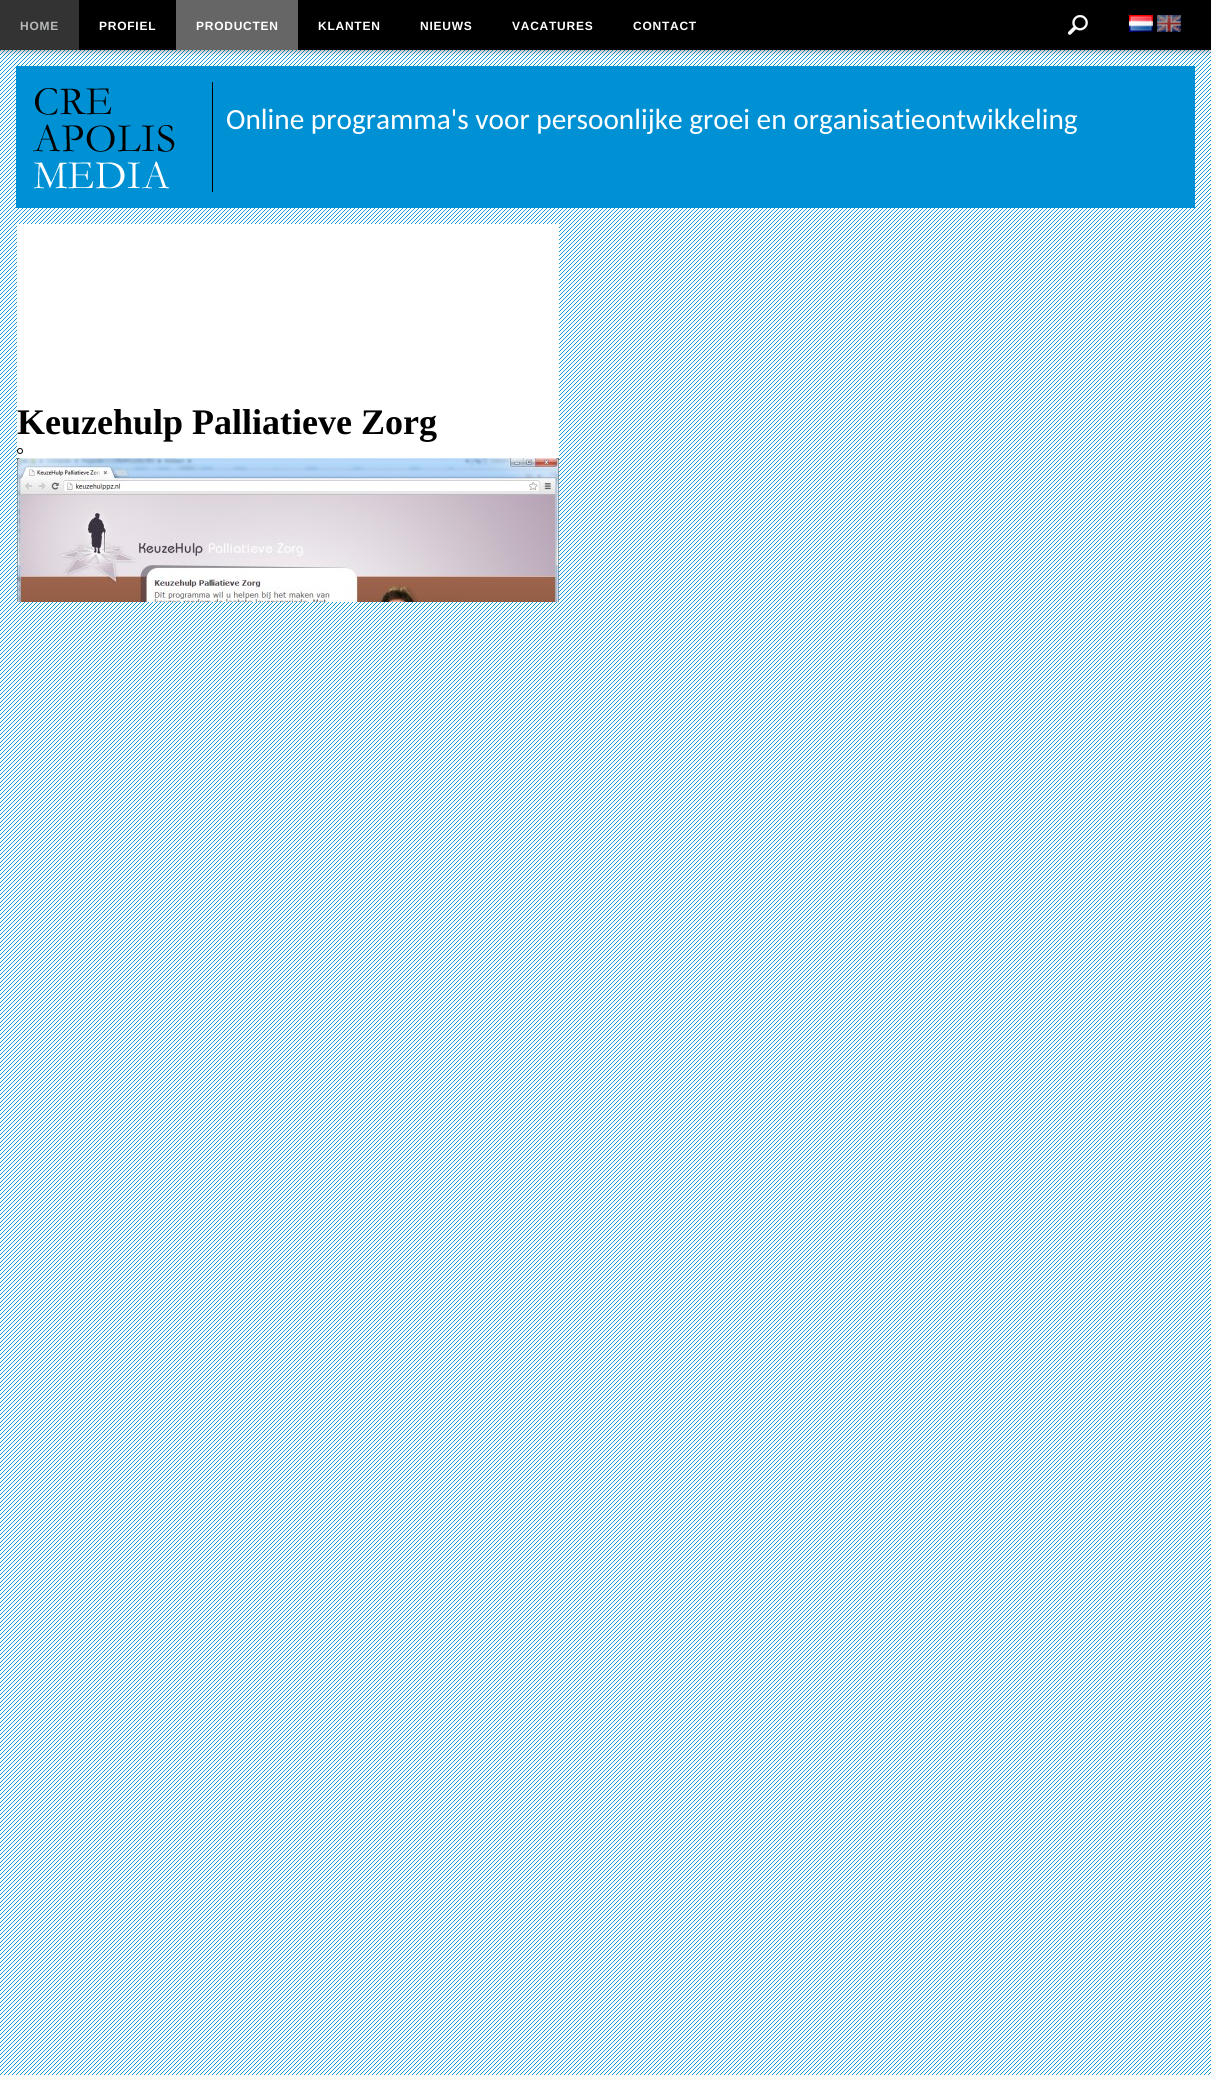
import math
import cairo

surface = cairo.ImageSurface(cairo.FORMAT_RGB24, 1211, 2075)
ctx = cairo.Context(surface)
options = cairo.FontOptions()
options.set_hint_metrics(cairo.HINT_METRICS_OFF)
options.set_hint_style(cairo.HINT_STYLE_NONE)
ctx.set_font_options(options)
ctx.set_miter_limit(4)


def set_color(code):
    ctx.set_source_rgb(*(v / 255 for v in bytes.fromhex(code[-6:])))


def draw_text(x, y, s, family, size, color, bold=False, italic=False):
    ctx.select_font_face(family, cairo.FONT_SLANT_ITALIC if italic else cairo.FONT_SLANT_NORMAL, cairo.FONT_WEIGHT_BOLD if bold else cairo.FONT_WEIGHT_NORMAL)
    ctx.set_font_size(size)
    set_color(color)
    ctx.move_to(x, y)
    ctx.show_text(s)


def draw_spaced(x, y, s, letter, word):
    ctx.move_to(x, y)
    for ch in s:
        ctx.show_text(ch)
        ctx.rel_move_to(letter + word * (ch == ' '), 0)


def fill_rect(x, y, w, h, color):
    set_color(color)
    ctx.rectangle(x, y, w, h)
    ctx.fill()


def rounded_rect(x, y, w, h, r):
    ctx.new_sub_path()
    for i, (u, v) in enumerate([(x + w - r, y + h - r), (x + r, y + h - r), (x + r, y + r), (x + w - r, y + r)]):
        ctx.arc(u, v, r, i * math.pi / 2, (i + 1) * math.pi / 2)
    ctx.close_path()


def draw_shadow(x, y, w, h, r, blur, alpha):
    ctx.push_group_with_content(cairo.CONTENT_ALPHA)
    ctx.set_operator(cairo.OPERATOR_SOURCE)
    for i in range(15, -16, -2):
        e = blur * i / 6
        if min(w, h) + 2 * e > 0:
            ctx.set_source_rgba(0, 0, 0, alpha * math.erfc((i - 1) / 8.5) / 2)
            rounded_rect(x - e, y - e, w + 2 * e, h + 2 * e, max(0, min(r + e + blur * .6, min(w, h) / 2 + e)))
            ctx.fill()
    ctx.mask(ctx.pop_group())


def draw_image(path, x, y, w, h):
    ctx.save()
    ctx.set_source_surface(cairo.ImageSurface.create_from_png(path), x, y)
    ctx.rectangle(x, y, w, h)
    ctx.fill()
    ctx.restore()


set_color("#0091d4")
ctx.paint()
draw_image("assets/img1.png", 0, 50, 1211, 2025)
set_color("#000000")
draw_shadow(0, 2, 1211, 50, 0, 3, 0.3)
fill_rect(79, 0, 1132, 50, "#000000")
fill_rect(0, 0, 79, 50, "#333333")
ctx.select_font_face("Liberation Sans", cairo.FONT_SLANT_NORMAL, cairo.FONT_WEIGHT_BOLD)
ctx.set_font_size(12)
set_color("#b6b8ba")
draw_spaced(20, 30, "HOME", 0.75, 0)
set_color("#ffffff")
draw_spaced(99, 30, "PROFIEL", 0.75, 0)
fill_rect(176, 0, 122, 50, "#666666")
set_color("#ffffff")
draw_spaced(196, 30, "PRODUCTEN", 0.75, 0)
draw_spaced(318, 30, "KLANTEN", 0.75, 0)
draw_spaced(420, 30, "NIEUWS", 0.75, 0)
draw_spaced(512, 30, "VACATURES", 0.75, 0)
draw_spaced(633, 30, "CONTACT", 0.75, 0)
draw_image("assets/img2.png", 1068, 15, 20, 20)
fill_rect(16, 66, 1179, 142, "#0091d4")
draw_image("assets/img3.png", 33, 88, 142, 101)
fill_rect(212, 82, 1, 110, "#000000")
draw_text(226, 129, "Online programma's voor persoonlijke groei en organisatieontwikkeling", "Carlito", 29.3, "#ffffff")
fill_rect(17, 224, 542, 234, "#ffffff")
draw_text(17, 434, "Keuzehulp Palliatieve Zorg", "Liberation Serif", 36, "#000000", bold=True)
ctx.new_path()
ctx.arc(20, 451, 2.5, 0, 2 * math.pi)
ctx.set_line_width(1)
ctx.stroke()
draw_image("assets/img4.png", 17, 458, 542, 144)
draw_image("assets/img5.png", 1129, 15, 24, 17)
draw_image("assets/img6.png", 1157, 15, 24, 17)
surface.write_to_png("output.png")
